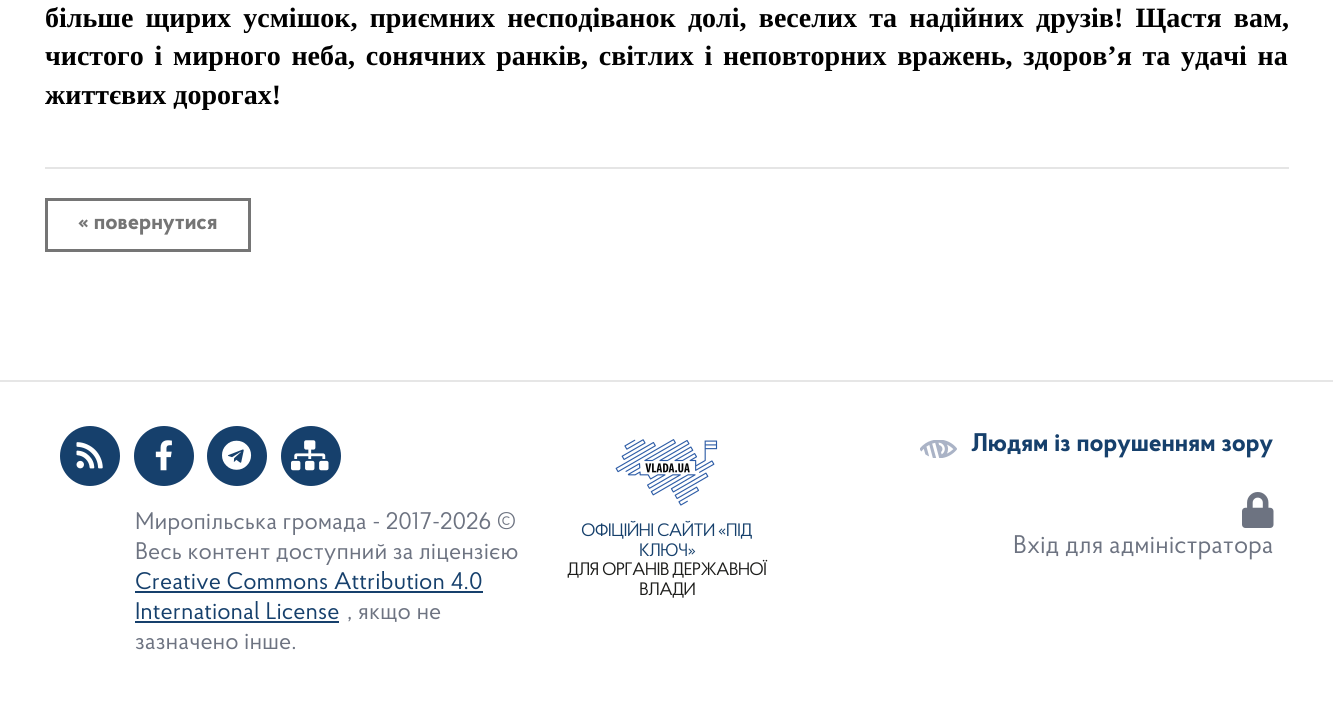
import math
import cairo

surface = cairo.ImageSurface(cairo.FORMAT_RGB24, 1333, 703)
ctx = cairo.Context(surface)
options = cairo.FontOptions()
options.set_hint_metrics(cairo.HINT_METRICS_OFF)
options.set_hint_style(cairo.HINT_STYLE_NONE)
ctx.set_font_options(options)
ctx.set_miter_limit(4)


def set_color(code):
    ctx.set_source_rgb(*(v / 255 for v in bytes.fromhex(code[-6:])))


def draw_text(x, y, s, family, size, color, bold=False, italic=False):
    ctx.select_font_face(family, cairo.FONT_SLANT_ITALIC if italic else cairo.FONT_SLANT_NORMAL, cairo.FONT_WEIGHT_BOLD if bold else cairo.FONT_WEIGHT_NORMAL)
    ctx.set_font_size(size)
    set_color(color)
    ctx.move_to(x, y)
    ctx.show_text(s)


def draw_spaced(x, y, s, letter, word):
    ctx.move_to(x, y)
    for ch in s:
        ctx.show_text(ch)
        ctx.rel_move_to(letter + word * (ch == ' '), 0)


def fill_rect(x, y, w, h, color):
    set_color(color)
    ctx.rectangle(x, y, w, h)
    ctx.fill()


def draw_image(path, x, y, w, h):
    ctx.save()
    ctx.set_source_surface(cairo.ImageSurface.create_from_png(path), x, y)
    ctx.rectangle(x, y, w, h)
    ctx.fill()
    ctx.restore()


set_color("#ffffff")
ctx.paint()
ctx.select_font_face("Liberation Serif", cairo.FONT_SLANT_NORMAL, cairo.FONT_WEIGHT_BOLD)
ctx.set_font_size(28)
set_color("#000000")
draw_spaced(45, 27, "більше щирих усмішок, приємних несподіванок долі, веселих та надійних друзів! Щастя вам,", 0, 5.25)
draw_spaced(45, 65, "чистого і мирного неба, сонячних ранків, світлих і неповторних вражень, здоров’я та удачі на", 0, 3.75)
draw_text(45, 104, "життєвих дорогах!", "Liberation Serif", 28, "#000000", bold=True)
fill_rect(45, 167, 1244, 2, "#e5e5e5")
ctx.rectangle(46.5, 199.5, 203, 51)
set_color("#757575")
ctx.set_line_width(3)
ctx.stroke()
draw_text(78, 229, "« повернутися", "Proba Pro", 22.5, "#757575", bold=True)
fill_rect(0, 380, 1333, 2, "#e6e6e6")
draw_image("assets/img1.png", 920, 440, 37, 18)
draw_text(971, 451, "Людям із порушенням зору", "Proba Pro", 25.5, "#16406c", bold=True)
draw_image("assets/img2.png", 1242, 492, 32, 36)
draw_text(1013, 553, "Вхід для адміністратора", "Proba Pro", 25.5, "#6d7381")
set_color("#16406c")
ctx.new_path()
ctx.arc(90, 456, 30, 0, 2 * math.pi)
ctx.fill()
draw_image("assets/img3.png", 76, 442, 27, 27)
ctx.arc(164, 456, 30, 0, 2 * math.pi)
ctx.fill()
draw_image("assets/img4.png", 155, 440, 17, 31)
ctx.arc(237, 456, 30, 0, 2 * math.pi)
ctx.fill()
draw_image("assets/img5.png", 222, 440, 30, 30)
ctx.arc(311, 456, 30, 0, 2 * math.pi)
ctx.fill()
draw_image("assets/img6.png", 291, 440, 38, 31)
draw_text(135, 529, "Миропільська громада - 2017-2026 ©", "Proba Pro", 24, "#6d7381")
draw_text(135, 559, "Весь контент доступний за ліцензією", "Proba Pro", 24, "#6d7381")
draw_text(135, 589, "Creative Commons Attribution 4.0", "Proba Pro", 24, "#16406c")
fill_rect(135, 591, 348, 2, "#16406c")
draw_text(135, 619, "International License", "Proba Pro", 24, "#16406c")
fill_rect(135, 621, 204, 2, "#16406c")
draw_text(347, 619, ", якщо не", "Proba Pro", 24, "#6d7381")
draw_text(135, 649, "зазначено інше.", "Proba Pro", 24, "#6d7381")
draw_image("assets/img7.png", 615, 439, 103, 67)
ctx.set_font_size(18)
set_color("#16406c")
draw_spaced(581, 536, "ОФІЦІЙНІ САЙТИ «ПІД", -0.75, 0)
draw_spaced(639, 556, "КЛЮЧ»", -0.75, 0)
set_color("#1d1d1b")
draw_spaced(567, 575, "ДЛЯ ОРГАНІВ ДЕРЖАВНОЇ", -0.75, 0)
draw_spaced(639, 595, "ВЛАДИ", -0.75, 0)
surface.write_to_png("output.png")
